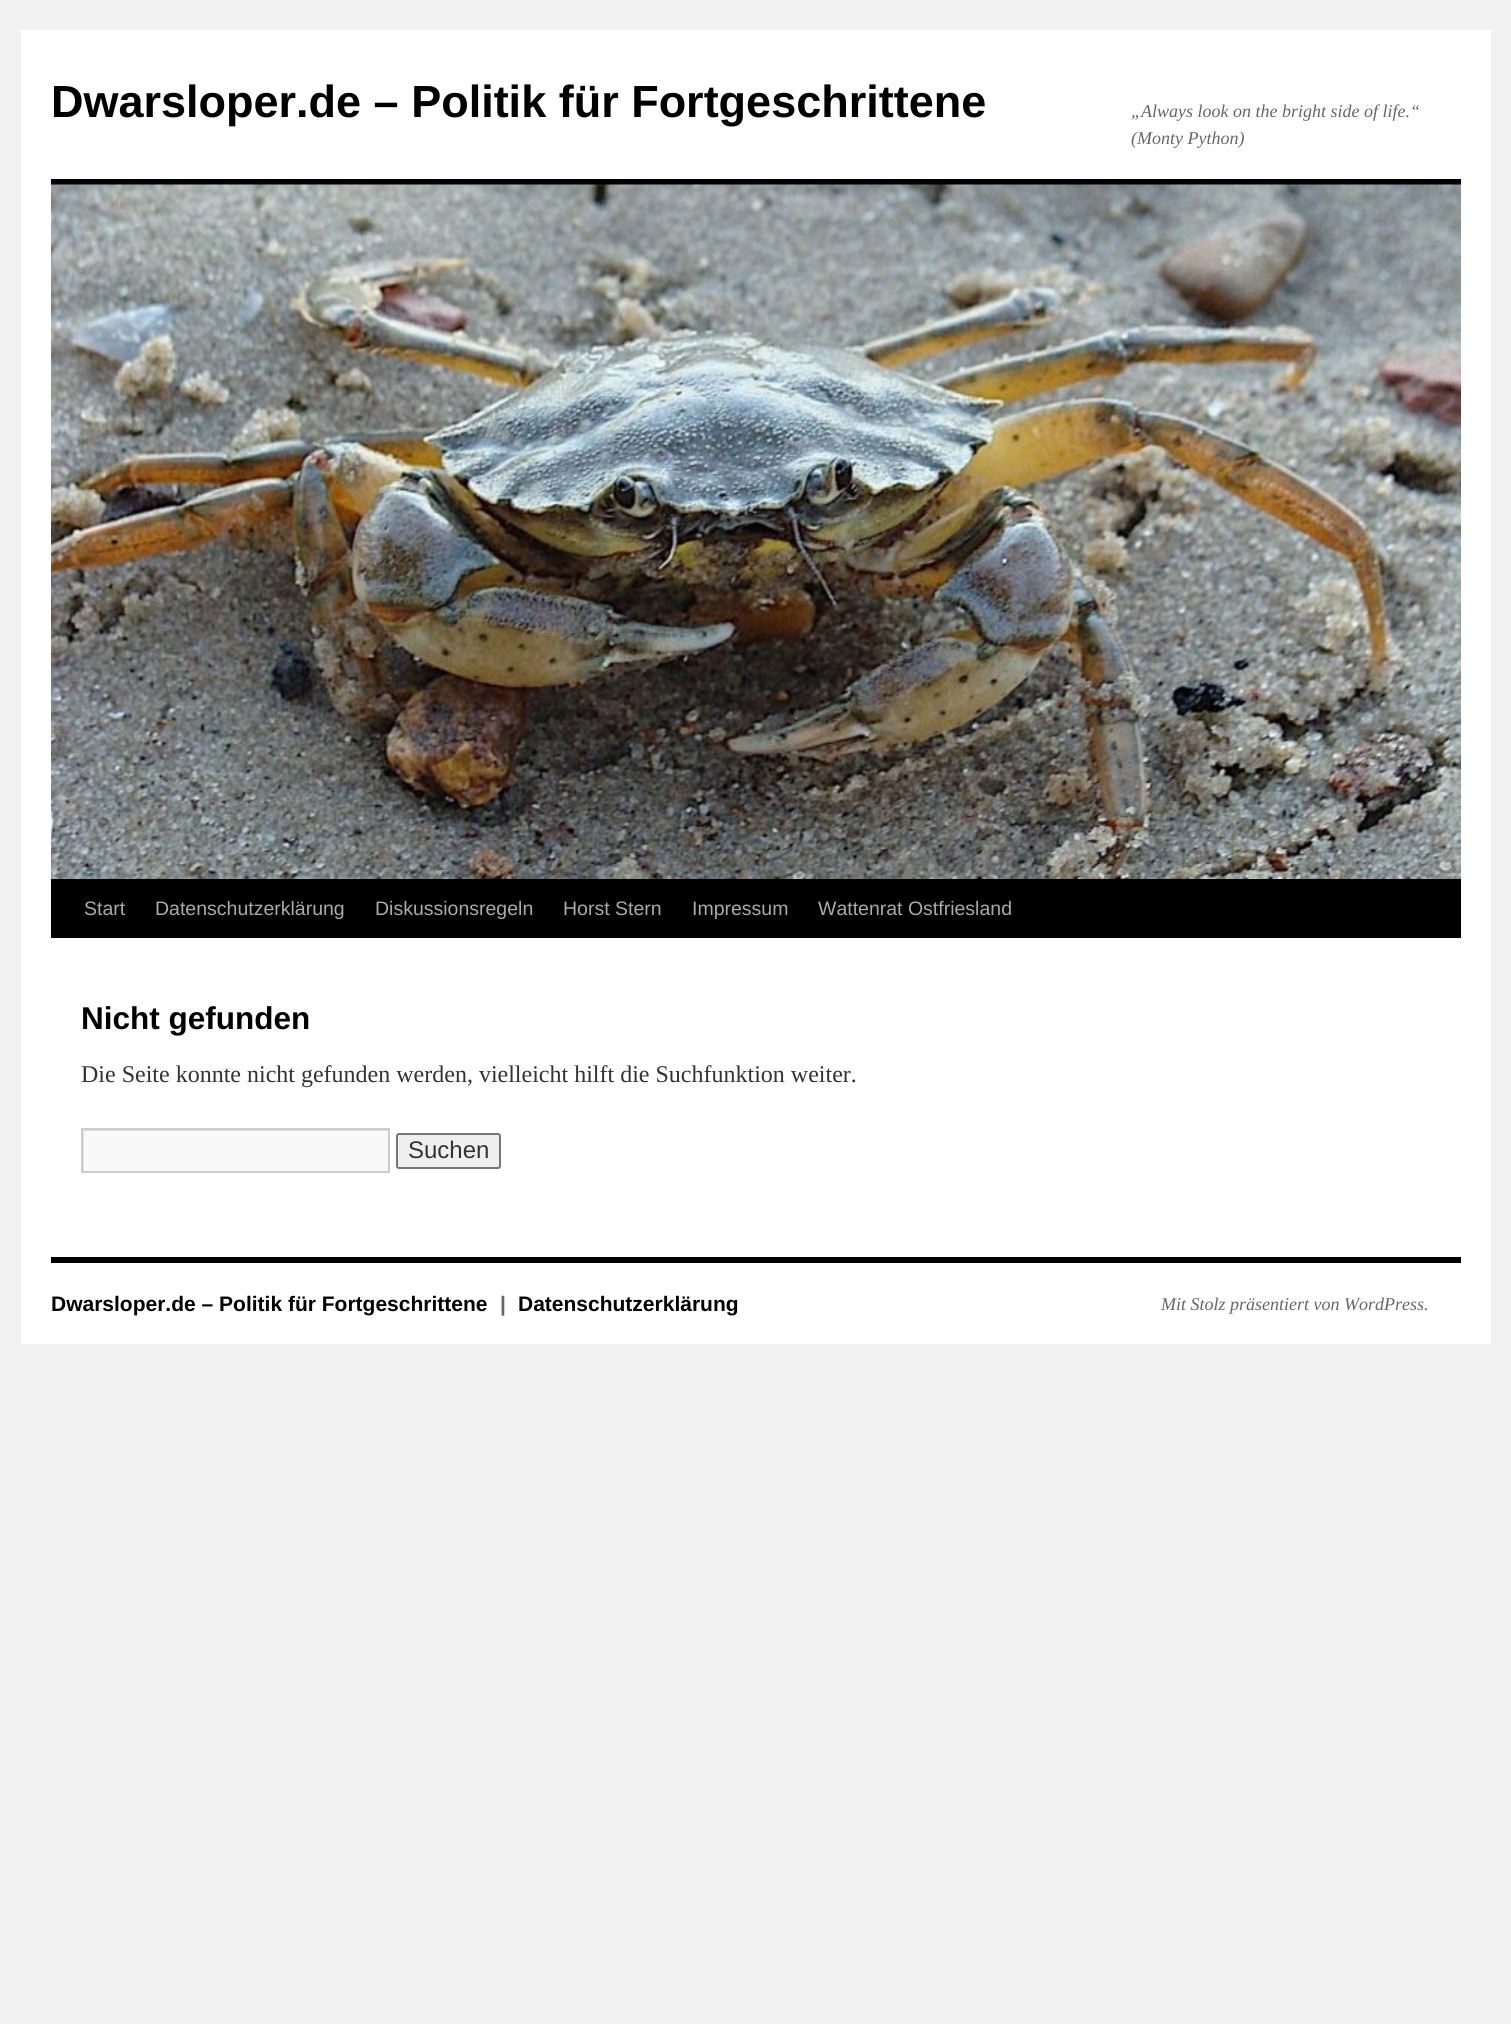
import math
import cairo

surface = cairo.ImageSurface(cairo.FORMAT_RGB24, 1511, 2024)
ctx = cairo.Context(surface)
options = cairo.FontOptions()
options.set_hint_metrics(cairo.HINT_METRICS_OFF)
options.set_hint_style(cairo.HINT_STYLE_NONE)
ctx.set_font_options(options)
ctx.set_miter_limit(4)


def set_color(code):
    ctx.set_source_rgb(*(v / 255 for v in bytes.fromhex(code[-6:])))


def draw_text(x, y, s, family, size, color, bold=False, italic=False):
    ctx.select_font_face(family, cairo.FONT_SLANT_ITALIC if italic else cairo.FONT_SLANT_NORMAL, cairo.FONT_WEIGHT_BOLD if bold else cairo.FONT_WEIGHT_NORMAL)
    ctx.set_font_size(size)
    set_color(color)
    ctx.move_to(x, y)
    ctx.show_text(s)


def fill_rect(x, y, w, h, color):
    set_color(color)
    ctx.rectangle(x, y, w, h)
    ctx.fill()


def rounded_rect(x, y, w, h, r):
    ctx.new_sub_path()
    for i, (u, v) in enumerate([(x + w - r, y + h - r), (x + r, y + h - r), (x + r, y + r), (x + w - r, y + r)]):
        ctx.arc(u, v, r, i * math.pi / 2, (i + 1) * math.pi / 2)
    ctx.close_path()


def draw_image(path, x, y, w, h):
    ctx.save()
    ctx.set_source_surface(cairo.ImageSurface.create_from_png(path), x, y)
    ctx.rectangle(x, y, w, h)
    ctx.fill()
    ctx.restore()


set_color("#f1f1f1")
ctx.paint()
fill_rect(21, 30, 1470, 1314, "#ffffff")
draw_text(51, 117, "Dwarsloper.de – Politik für Fortgeschrittene", "Liberation Sans", 45, "#000000", bold=True)
draw_text(1131, 117, "„Always look on the bright side of life.“", "Liberation Serif", 18, "#666666", italic=True)
draw_text(1131, 144, "(Monty Python)", "Liberation Serif", 18, "#666666", italic=True)
fill_rect(51, 179, 1410, 6, "#000000")
fill_rect(51, 879, 1410, 59, "#000000")
draw_image("assets/img1.png", 51, 184, 1410, 695)
draw_text(84, 915, "Start", "Liberation Sans", 19.5, "#aaaaaa")
draw_text(155, 915, "Datenschutzerklärung", "Liberation Sans", 19.5, "#aaaaaa")
draw_text(375, 915, "Diskussionsregeln", "Liberation Sans", 19.5, "#aaaaaa")
draw_text(563, 915, "Horst Stern", "Liberation Sans", 19.5, "#aaaaaa")
draw_text(692, 915, "Impressum", "Liberation Sans", 19.5, "#aaaaaa")
draw_text(818, 915, "Wattenrat Ostfriesland", "Liberation Sans", 19.5, "#aaaaaa")
draw_text(81, 1029, "Nicht gefunden", "Liberation Sans", 31.5, "#000000", bold=True)
draw_text(81, 1082, "Die Seite konnte nicht gefunden werden, vielleicht hilft die Suchfunktion weiter.", "Liberation Serif", 24, "#333333")
fill_rect(84, 1131, 304, 40, "#f9f9f9")
ctx.save()
ctx.rectangle(83, 1130, 306, 42)
ctx.clip()
set_color("#e0e0e0")
ctx.set_fill_rule(cairo.FILL_RULE_EVEN_ODD)
ctx.new_path()
ctx.move_to(-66, 981)
ctx.line_to(537, 981)
ctx.line_to(537, 1320)
ctx.line_to(-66, 1320)
ctx.close_path()
ctx.move_to(84, 1131)
ctx.line_to(390, 1131)
ctx.line_to(390, 1173)
ctx.line_to(84, 1173)
ctx.close_path()
ctx.fill()
ctx.restore()
ctx.rectangle(82, 1129, 307, 43)
set_color("#cccccc")
ctx.stroke()
set_color("#efefef")
rounded_rect(397, 1134, 103, 34, 2)
ctx.fill_preserve()
set_color("#767676")
ctx.stroke()
draw_text(408, 1158, "Suchen", "Liberation Sans", 24, "#333333")
fill_rect(51, 1257, 1410, 6, "#000000")
draw_text(51, 1311, "Dwarsloper.de – Politik für Fortgeschrittene", "Liberation Sans", 21, "#000000", bold=True)
draw_text(500, 1311, "|", "Liberation Sans", 21, "#666666", bold=True)
draw_text(518, 1311, "Datenschutzerklärung", "Liberation Sans", 21, "#000000", bold=True)
draw_text(1161, 1310, "Mit Stolz präsentiert von WordPress.", "Liberation Serif", 18, "#666666", italic=True)
surface.write_to_png("output.png")
